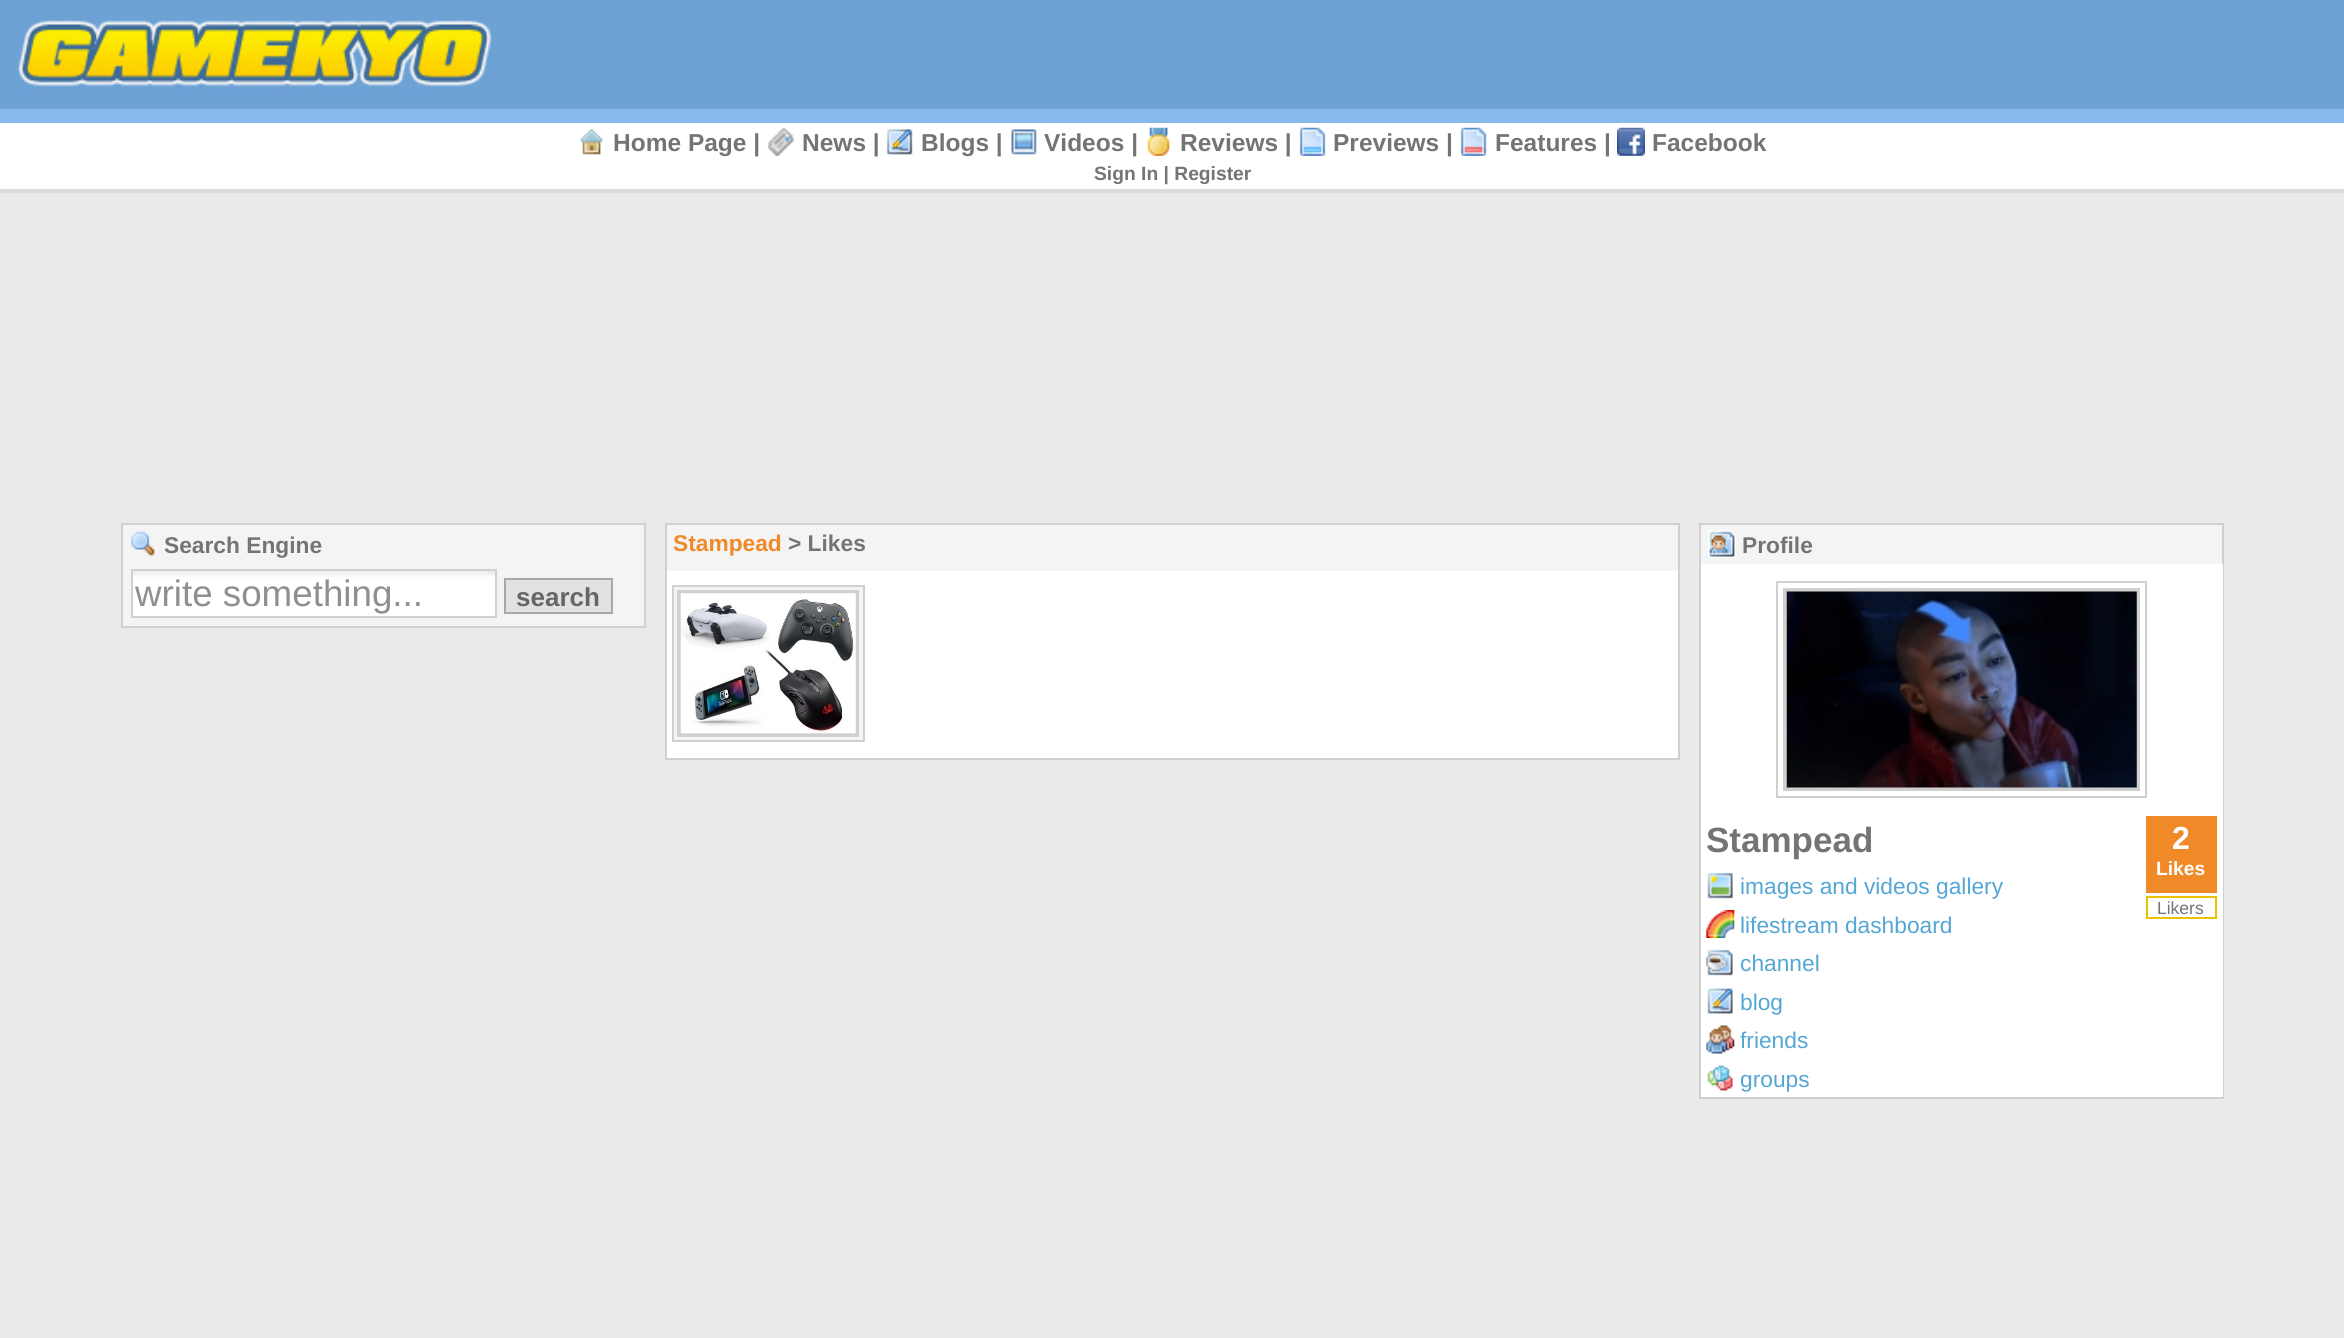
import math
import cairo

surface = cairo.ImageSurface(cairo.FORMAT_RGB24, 2344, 1338)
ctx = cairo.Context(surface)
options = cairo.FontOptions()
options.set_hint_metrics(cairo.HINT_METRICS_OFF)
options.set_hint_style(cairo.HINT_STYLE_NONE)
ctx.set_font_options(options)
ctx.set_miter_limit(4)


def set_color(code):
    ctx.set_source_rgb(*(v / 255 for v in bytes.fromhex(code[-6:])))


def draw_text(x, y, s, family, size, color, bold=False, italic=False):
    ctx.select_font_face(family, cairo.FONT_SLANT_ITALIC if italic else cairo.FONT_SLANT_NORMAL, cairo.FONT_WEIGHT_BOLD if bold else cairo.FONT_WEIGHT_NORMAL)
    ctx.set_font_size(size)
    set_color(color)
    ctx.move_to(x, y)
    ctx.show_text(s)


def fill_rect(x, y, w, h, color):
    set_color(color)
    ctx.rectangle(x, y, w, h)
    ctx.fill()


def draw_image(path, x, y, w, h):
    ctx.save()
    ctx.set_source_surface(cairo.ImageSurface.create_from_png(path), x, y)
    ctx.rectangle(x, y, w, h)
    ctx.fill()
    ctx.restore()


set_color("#eaeaea")
ctx.paint()
fill_rect(0, 0, 2344, 109, "#6da2d5")
fill_rect(0, 109, 2344, 14, "#87b9eb")
draw_image("assets/img1.png", 17, 14, 475, 82)
fill_rect(0, 123, 2344, 66, "#ffffff")
draw_image("assets/img2.png", 580, 129, 23, 26)
draw_text(613, 151, "Home Page |", "Liberation Sans", 24.5, "#747474", bold=True)
draw_image("assets/img3.png", 767, 127, 28, 29)
draw_text(802, 151, "News |", "Liberation Sans", 24.5, "#747474", bold=True)
draw_image("assets/img4.png", 886, 129, 27, 26)
draw_text(921, 151, "Blogs |", "Liberation Sans", 24.5, "#747474", bold=True)
draw_image("assets/img5.png", 1011, 129, 26, 26)
draw_text(1044, 151, "Videos |", "Liberation Sans", 24.5, "#747474", bold=True)
draw_image("assets/img6.png", 1147, 127, 23, 29)
draw_text(1180, 151, "Reviews |", "Liberation Sans", 24.5, "#747474", bold=True)
draw_image("assets/img7.png", 1299, 127, 27, 29)
draw_text(1333, 151, "Previews |", "Liberation Sans", 24.5, "#747474", bold=True)
draw_image("assets/img8.png", 1460, 127, 27, 29)
draw_text(1495, 151, "Features |", "Liberation Sans", 24.5, "#747474", bold=True)
draw_image("assets/img9.png", 1617, 127, 28, 29)
draw_text(1652, 151, "Facebook", "Liberation Sans", 24.5, "#747474", bold=True)
fill_rect(0, 189, 2344, 4, "#dbdbdb")
draw_text(1094, 180, "Sign In | Register", "Liberation Sans", 19.25, "#747474", bold=True)
set_color("#f4f4f4")
ctx.rectangle(122, 524, 523, 103)
ctx.fill_preserve()
set_color("#d0d0d0")
ctx.stroke()
draw_image("assets/img10.png", 130, 531, 25, 26)
draw_text(164, 553, "Search Engine", "Liberation Sans", 22.75, "#747474", bold=True)
fill_rect(133, 577, 362, 39, "#ffffff")
draw_image("assets/img11.png", 133, 571, 362, 6)
ctx.rectangle(132, 570, 364, 47)
set_color("#d0d0d0")
ctx.stroke()
draw_text(135, 606, "write something...", "Liberation Sans", 36.75, "#8f8f8f")
set_color("#e2e2e2")
ctx.rectangle(505, 579, 107, 34)
ctx.fill_preserve()
set_color("#a7a6aa")
ctx.stroke()
draw_text(516, 606, "search", "Liberation Sans", 26, "#666666", bold=True)
fill_rect(667, 525, 1011, 46, "#f4f4f4")
ctx.rectangle(666, 524, 1013, 235)
set_color("#d0d0d0")
ctx.stroke()
draw_text(673, 551, "Stampead", "Liberation Sans", 22.75, "#f08a28", bold=True)
draw_text(788, 551, "> Likes", "Liberation Sans", 22.75, "#747474", bold=True)
fill_rect(667, 571, 1011, 187, "#ffffff")
set_color("#f4f4f4")
ctx.rectangle(673, 586, 191, 155)
ctx.fill_preserve()
set_color("#d0d0d0")
ctx.stroke()
ctx.rectangle(679, 592, 178, 143)
ctx.set_line_width(4)
ctx.stroke()
draw_image("assets/img12.png", 680, 593, 176, 141)
fill_rect(1701, 525, 521, 39, "#f4f4f4")
ctx.rectangle(1700, 524, 523, 574)
set_color("#d0d0d0")
ctx.set_line_width(2)
ctx.stroke()
draw_image("assets/img13.png", 1708, 530, 28, 28)
draw_text(1742, 553, "Profile", "Liberation Sans", 22.75, "#747474", bold=True)
fill_rect(1701, 564, 522, 533, "#ffffff")
ctx.rectangle(1777, 582, 369, 215)
set_color("#d0d0d0")
ctx.stroke()
ctx.rectangle(1785, 590, 353, 199)
ctx.set_line_width(4)
ctx.stroke()
draw_image("assets/img14.png", 1786, 591, 351, 197)
draw_text(1706, 852, "Stampead", "Liberation Sans", 35, "#747474", bold=True)
fill_rect(2146, 816, 71, 77, "#f08a28")
draw_text(2172, 849, "2", "Liberation Sans", 32, "#ffffff", bold=True)
draw_text(2156, 875, "Likes", "Liberation Sans", 19.25, "#ffffff", bold=True)
ctx.rectangle(2147, 897, 69, 21)
set_color("#ecc101")
ctx.set_line_width(2)
ctx.stroke()
draw_text(2157, 914, "Likers", "Liberation Sans", 17.5, "#747474")
draw_image("assets/img15.png", 1707, 872, 26, 27)
draw_text(1740, 894, "images and videos gallery", "Liberation Sans", 22.75, "#54a6d5")
draw_image("assets/img16.png", 1706, 910, 29, 28)
draw_text(1740, 933, "lifestream dashboard", "Liberation Sans", 22.75, "#54a6d5")
draw_image("assets/img17.png", 1706, 949, 27, 27)
draw_text(1740, 971, "channel", "Liberation Sans", 22.75, "#54a6d5")
draw_image("assets/img18.png", 1707, 988, 26, 26)
draw_text(1740, 1010, "blog", "Liberation Sans", 22.75, "#54a6d5")
draw_image("assets/img19.png", 1706, 1025, 29, 29)
draw_text(1740, 1048, "friends", "Liberation Sans", 22.75, "#54a6d5")
draw_image("assets/img20.png", 1707, 1065, 26, 26)
draw_text(1740, 1087, "groups", "Liberation Sans", 22.75, "#54a6d5")
surface.write_to_png("output.png")
